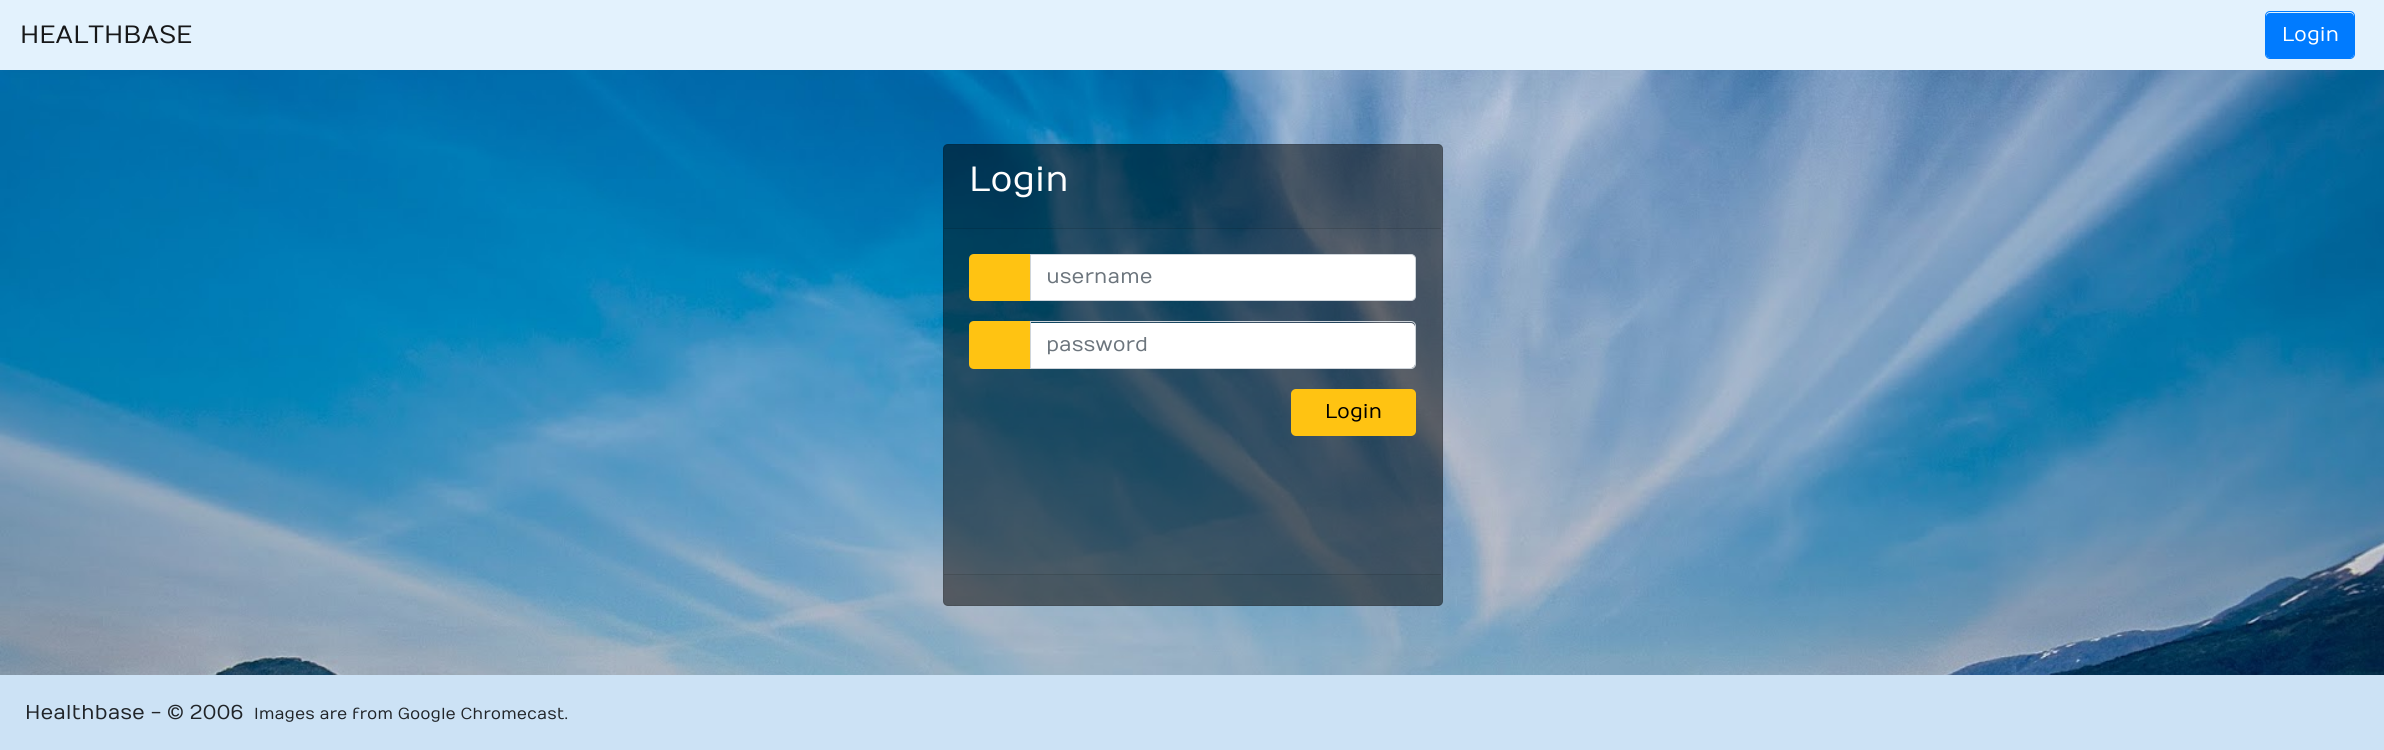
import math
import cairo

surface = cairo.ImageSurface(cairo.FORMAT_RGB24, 2384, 750)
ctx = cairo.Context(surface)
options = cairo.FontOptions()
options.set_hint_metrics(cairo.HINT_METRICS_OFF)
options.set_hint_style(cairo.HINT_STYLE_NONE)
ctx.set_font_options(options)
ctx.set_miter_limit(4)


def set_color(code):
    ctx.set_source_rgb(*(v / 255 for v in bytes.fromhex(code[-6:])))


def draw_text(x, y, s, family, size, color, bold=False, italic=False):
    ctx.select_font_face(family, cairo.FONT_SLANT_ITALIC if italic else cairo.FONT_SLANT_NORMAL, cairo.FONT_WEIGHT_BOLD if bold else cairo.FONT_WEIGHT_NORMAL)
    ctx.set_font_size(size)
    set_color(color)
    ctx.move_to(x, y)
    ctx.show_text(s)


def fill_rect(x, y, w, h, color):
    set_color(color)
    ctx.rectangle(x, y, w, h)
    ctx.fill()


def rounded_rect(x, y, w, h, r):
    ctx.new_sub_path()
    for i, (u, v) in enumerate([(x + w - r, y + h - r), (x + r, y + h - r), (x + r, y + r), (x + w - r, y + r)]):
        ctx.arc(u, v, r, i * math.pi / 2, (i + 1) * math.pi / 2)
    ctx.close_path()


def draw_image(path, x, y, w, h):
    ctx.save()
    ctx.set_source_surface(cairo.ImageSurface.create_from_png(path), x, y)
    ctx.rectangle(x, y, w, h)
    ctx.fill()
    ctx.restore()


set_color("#ffffff")
ctx.paint()
draw_image("assets/img1.png", 0, 70, 2384, 605)
fill_rect(0, 0, 2384, 70, "#e3f2fd")
draw_text(20, 43, "HEALTHBASE", "Numans", 25, "#171819")
set_color("#007bff")
rounded_rect(2266, 13, 88, 45, 4)
ctx.fill()
rounded_rect(2265.5, 11.5, 89, 47, 4.5)
ctx.set_line_width(1)
ctx.stroke()
draw_text(2282, 41, "Login", "Numans", 20, "#ffffff")
ctx.set_source_rgba(0, 0, 0, 0.5)
rounded_rect(943, 144, 500, 462, 5)
ctx.fill()
rounded_rect(943.5, 144.5, 499, 461, 4.5)
ctx.set_source_rgba(0, 0, 0, 0.12)
ctx.stroke()
ctx.set_source_rgba(0, 0, 0, 0.03)
ctx.rectangle(944, 145, 497, 84)
ctx.fill()
ctx.set_source_rgba(0, 0, 0, 0.12)
ctx.rectangle(944, 228, 497, 1)
ctx.fill()
draw_text(969, 191, "Login", "Numans", 35, "#ffffff")
set_color("#ffc312")
ctx.new_path()
ctx.move_to(974, 254)
ctx.line_to(1031, 254)
ctx.line_to(1031, 301)
ctx.line_to(974, 301)
ctx.curve_to(971, 301, 969, 299, 969, 296)
ctx.line_to(969, 259)
ctx.curve_to(969, 256, 971, 254, 974, 254)
ctx.close_path()
ctx.fill()
set_color("#ffffff")
ctx.new_path()
ctx.move_to(1030.5, 254.5)
ctx.line_to(1411, 254.5)
ctx.curve_to(1413.5, 254.5, 1415.5, 256.5, 1415.5, 259)
ctx.line_to(1415.5, 296)
ctx.curve_to(1415.5, 298.5, 1413.5, 300.5, 1411, 300.5)
ctx.line_to(1030.5, 300.5)
ctx.close_path()
ctx.fill_preserve()
set_color("#ced4da")
ctx.stroke()
draw_text(1046, 283, "username", "Numans", 20, "#6c757d")
set_color("#ffc312")
ctx.new_path()
ctx.move_to(974, 321)
ctx.line_to(1031, 321)
ctx.line_to(1031, 369)
ctx.line_to(974, 369)
ctx.curve_to(971, 369, 969, 367, 969, 364)
ctx.line_to(969, 326)
ctx.curve_to(969, 323, 971, 321, 974, 321)
ctx.close_path()
ctx.fill()
set_color("#ffffff")
ctx.new_path()
ctx.move_to(1031, 323)
ctx.line_to(1411, 323)
ctx.curve_to(1413, 323, 1415, 325, 1415, 327)
ctx.line_to(1415, 364)
ctx.curve_to(1415, 366, 1413, 368, 1411, 368)
ctx.line_to(1031, 368)
ctx.close_path()
ctx.fill()
ctx.new_path()
ctx.move_to(1030.5, 321.5)
ctx.line_to(1411, 321.5)
ctx.curve_to(1413.5, 321.5, 1415.5, 323.5, 1415.5, 326)
ctx.line_to(1415.5, 364)
ctx.curve_to(1415.5, 366.5, 1413.5, 368.5, 1411, 368.5)
ctx.line_to(1030.5, 368.5)
ctx.close_path()
set_color("#ced4da")
ctx.stroke()
draw_text(1046, 351, "password", "Numans", 20, "#6c757d")
set_color("#ffc312")
rounded_rect(1291, 389, 125, 47, 5)
ctx.fill()
draw_text(1325, 418, "Login", "Numans", 20, "#000000")
ctx.set_source_rgba(0, 0, 0, 0.03)
ctx.rectangle(944, 574, 497, 31)
ctx.fill()
ctx.set_source_rgba(0, 0, 0, 0.12)
ctx.rectangle(944, 574, 497, 1)
ctx.fill()
fill_rect(0, 675, 2384, 75, "#cce2f5")
draw_text(25, 719, "Healthbase - © 2006", "Numans", 20, "#212529")
draw_text(254, 719, "Images are from Google Chromecast.", "Numans", 16, "#212529")
surface.write_to_png("output.png")
